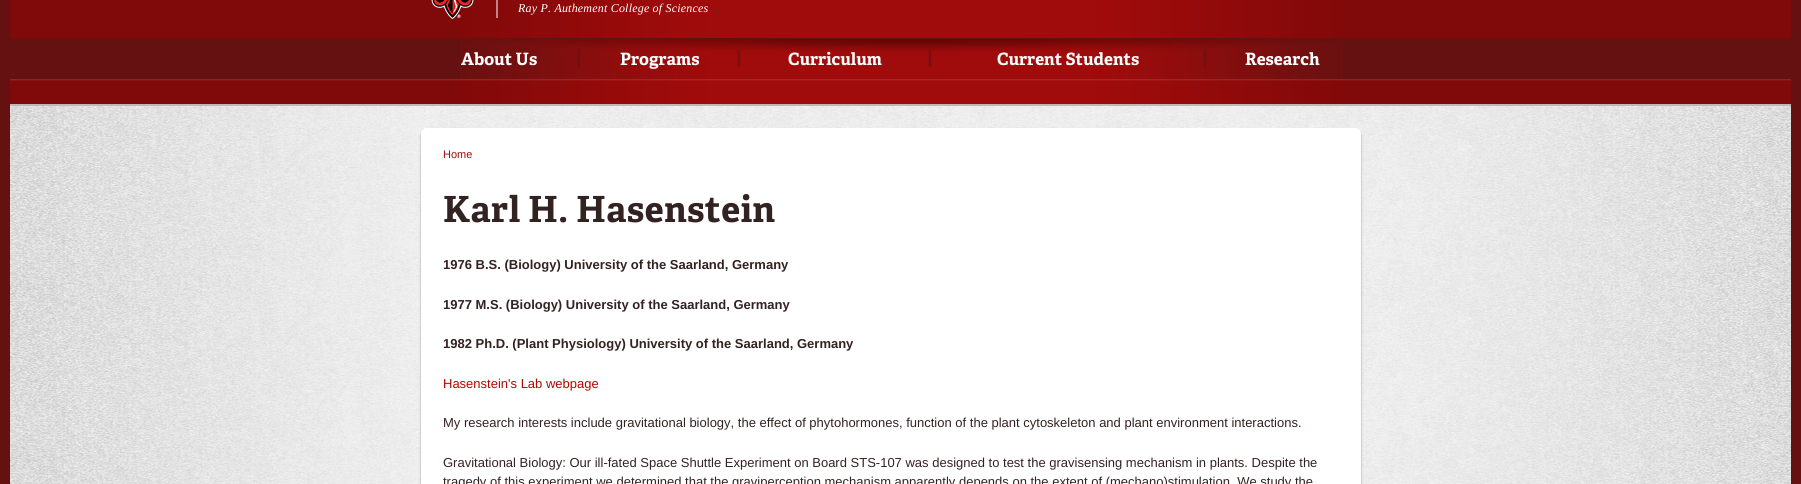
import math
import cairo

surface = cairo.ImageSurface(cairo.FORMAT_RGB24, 1801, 484)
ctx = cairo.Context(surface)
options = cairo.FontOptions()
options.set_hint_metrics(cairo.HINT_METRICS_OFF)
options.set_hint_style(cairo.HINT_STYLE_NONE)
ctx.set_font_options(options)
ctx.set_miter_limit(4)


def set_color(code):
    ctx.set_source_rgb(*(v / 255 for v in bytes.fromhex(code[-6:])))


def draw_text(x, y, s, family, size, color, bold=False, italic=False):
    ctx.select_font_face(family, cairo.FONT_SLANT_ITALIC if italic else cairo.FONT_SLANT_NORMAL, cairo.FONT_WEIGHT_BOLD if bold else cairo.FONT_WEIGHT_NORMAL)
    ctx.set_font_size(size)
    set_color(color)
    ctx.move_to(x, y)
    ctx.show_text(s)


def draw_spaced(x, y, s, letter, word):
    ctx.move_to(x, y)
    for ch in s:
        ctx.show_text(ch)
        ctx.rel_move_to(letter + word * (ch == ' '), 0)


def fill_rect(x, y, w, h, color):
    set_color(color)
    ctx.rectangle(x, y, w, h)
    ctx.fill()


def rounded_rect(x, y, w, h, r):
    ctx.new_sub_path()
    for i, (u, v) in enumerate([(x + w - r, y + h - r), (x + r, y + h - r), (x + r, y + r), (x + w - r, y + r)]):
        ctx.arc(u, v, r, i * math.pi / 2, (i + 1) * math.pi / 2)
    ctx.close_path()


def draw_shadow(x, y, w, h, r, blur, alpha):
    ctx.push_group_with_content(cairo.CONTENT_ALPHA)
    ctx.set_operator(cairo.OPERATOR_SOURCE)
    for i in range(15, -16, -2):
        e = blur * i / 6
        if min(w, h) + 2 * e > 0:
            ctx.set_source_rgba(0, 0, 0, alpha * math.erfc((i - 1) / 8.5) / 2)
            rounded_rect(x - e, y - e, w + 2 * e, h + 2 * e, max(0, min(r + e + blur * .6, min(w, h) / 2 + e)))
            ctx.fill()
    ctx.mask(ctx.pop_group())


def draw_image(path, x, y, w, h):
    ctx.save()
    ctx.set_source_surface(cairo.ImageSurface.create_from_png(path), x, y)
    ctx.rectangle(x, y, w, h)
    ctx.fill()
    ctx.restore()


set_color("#ffffff")
ctx.paint()
draw_image("assets/img1.png", 10, 106, 1781, 378)
fill_rect(1791, 0, 10, 484, "#661111")
fill_rect(0, 0, 10, 484, "#661111")
fill_rect(10, 0, 1781, 104, "#800909")
draw_image("assets/img2.png", 10, 38, 1781, 43)
fill_rect(10, 104, 1781, 2, "#bdb9b9")
draw_image("assets/img3.png", 460, 0, 883, 104)
draw_image("assets/img4.png", 431, 0, 67, 19)
ctx.select_font_face("Liberation Serif", cairo.FONT_SLANT_ITALIC)
ctx.set_font_size(12)
set_color("#ffffff")
draw_spaced(518, 12, "Ray P. Authement College of Sciences", 0.2, 0)
draw_image("assets/img5.png", 577, 49, 4, 19)
draw_text(461, 65, "About Us", "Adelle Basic", 17, "#ffffff", bold=True)
draw_image("assets/img6.png", 737, 49, 4, 19)
draw_text(620, 65, "Programs", "Adelle Basic", 17, "#ffffff", bold=True)
draw_image("assets/img7.png", 928, 49, 4, 19)
draw_text(788, 65, "Curriculum", "Adelle Basic", 17, "#ffffff", bold=True)
draw_image("assets/img8.png", 1203, 49, 4, 19)
draw_text(997, 65, "Current Students", "Adelle Basic", 17, "#ffffff", bold=True)
draw_text(1245, 65, "Research", "Adelle Basic", 17, "#ffffff", bold=True)
set_color("#999999")
draw_shadow(421, 130, 940, 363, 6, 1, 1)
set_color("#ffffff")
rounded_rect(421, 128, 940, 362, 6)
ctx.fill()
draw_text(443, 158, "Home", "Liberation Sans", 11, "#a00b0b")
ctx.select_font_face("Adelle Basic", cairo.FONT_SLANT_NORMAL, cairo.FONT_WEIGHT_BOLD)
ctx.set_font_size(36)
set_color("#332222")
draw_spaced(443, 222, "Karl H. Hasenstein", 0.5, 0)
draw_text(443, 269, "1976 B.S. (Biology) University of the Saarland, Germany", "Liberation Sans", 13, "#332222", bold=True)
draw_text(443, 309, "1977 M.S. (Biology) University of the Saarland, Germany", "Liberation Sans", 13, "#332222", bold=True)
draw_text(443, 348, "1982 Ph.D. (Plant Physiology) University of the Saarland, Germany", "Liberation Sans", 13, "#332222", bold=True)
draw_text(443, 388, "Hasenstein's Lab webpage", "Liberation Sans", 13, "#ba0303")
draw_text(443, 427, "My research interests include gravitational biology, the effect of phytohormones, function of the plant cytoskeleton and plant environment interactions.", "Liberation Sans", 13, "#332222")
draw_text(443, 467, "Gravitational Biology: Our ill-fated Space Shuttle Experiment on Board STS-107 was designed to test the gravisensing mechanism in plants. Despite the", "Liberation Sans", 13, "#332222")
draw_text(443, 486, "tragedy of this experiment we determined that the graviperception mechanism apparently depends on the extent of (mechano)stimulation. We study the", "Liberation Sans", 13, "#332222")
surface.write_to_png("output.png")
